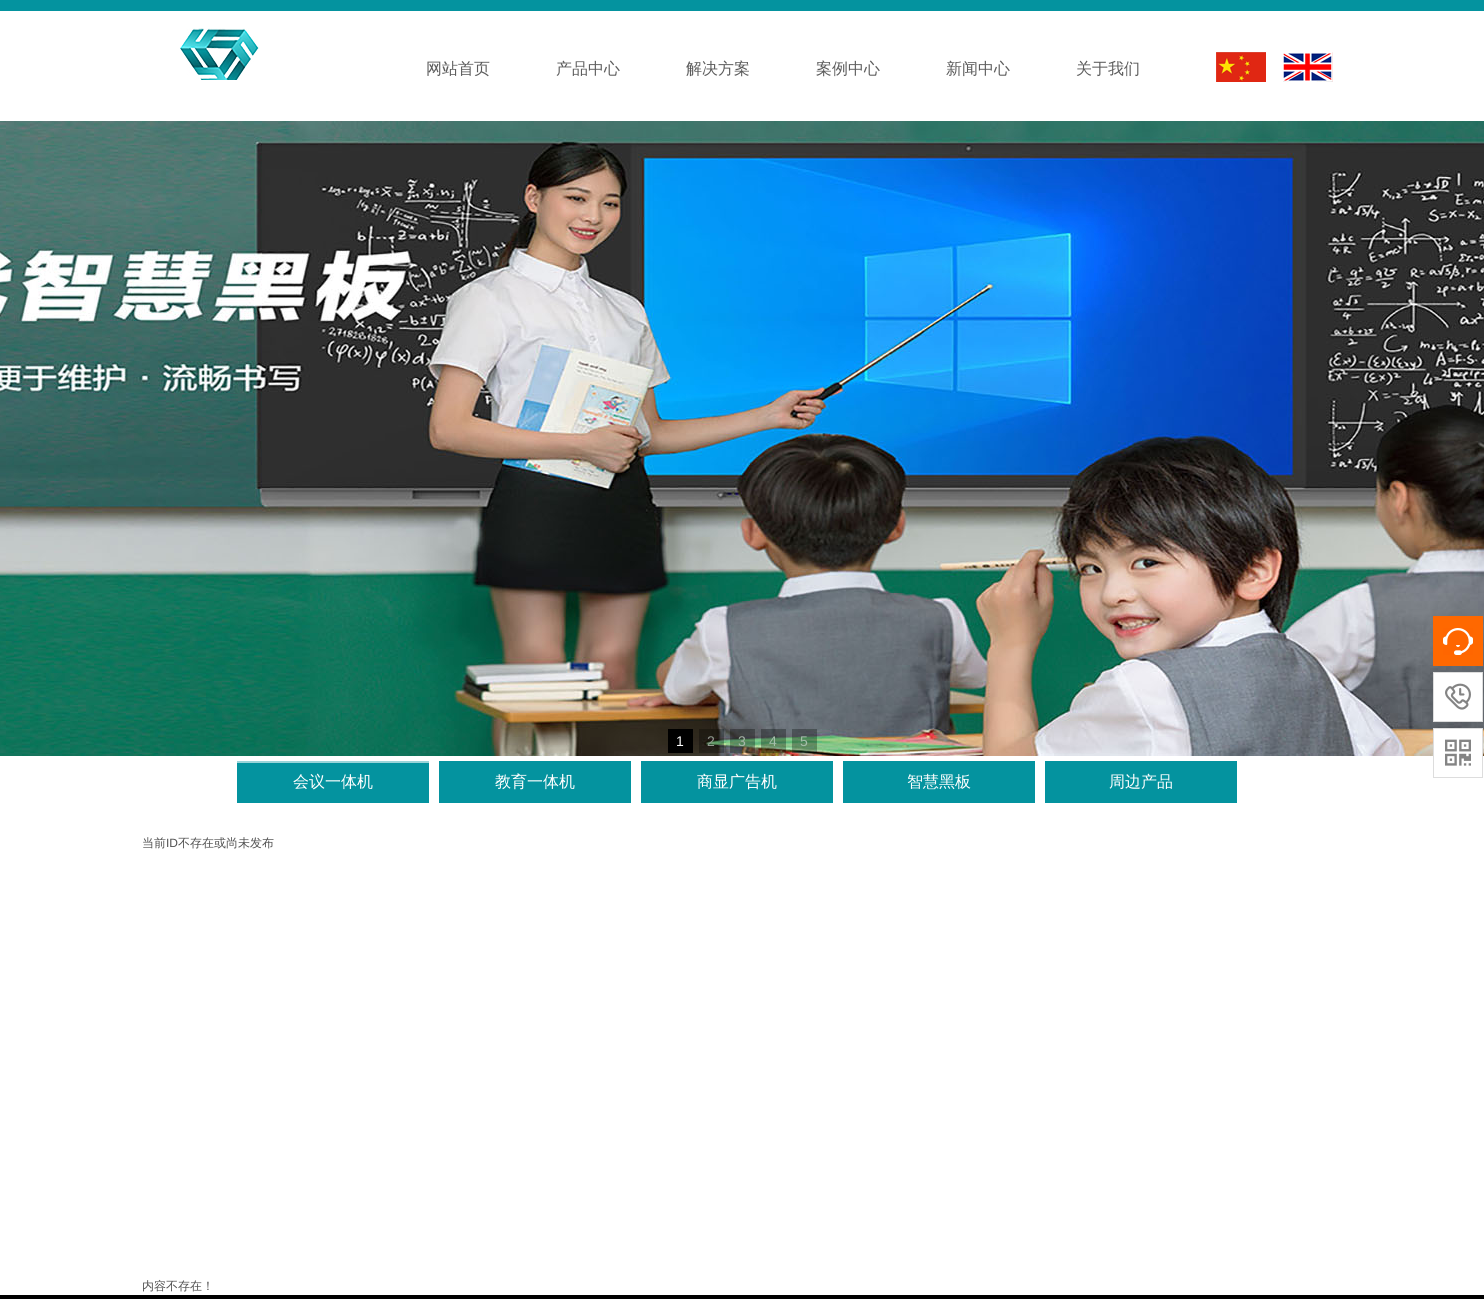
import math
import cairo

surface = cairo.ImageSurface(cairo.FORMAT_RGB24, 1484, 1299)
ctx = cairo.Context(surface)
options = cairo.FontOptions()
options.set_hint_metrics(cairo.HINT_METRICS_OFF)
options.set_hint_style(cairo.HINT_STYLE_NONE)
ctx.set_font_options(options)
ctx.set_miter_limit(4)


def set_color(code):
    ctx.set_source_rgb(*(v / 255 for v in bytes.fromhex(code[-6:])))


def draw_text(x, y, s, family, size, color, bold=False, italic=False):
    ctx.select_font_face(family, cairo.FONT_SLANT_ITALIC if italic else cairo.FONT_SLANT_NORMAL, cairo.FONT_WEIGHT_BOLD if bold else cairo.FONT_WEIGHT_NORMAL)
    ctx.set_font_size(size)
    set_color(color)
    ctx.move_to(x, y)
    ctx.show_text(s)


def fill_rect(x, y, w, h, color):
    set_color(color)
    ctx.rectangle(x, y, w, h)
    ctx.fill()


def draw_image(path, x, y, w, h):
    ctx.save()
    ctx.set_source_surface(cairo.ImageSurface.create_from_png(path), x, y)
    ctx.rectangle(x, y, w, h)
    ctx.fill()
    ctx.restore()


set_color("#ffffff")
ctx.paint()
fill_rect(0, 0, 1484, 11, "#04939f")
draw_image("assets/img1.png", 180, 28, 79, 52)
draw_text(426, 74, "网站首页", "WenQuanYi Zen Hei Medium", 16, "#5c5c5c")
draw_text(556, 74, "产品中心", "WenQuanYi Zen Hei Medium", 16, "#5c5c5c")
draw_text(686, 74, "解决方案", "WenQuanYi Zen Hei Medium", 16, "#5c5c5c")
draw_text(816, 74, "案例中心", "WenQuanYi Zen Hei Medium", 16, "#5c5c5c")
draw_text(946, 74, "新闻中心", "WenQuanYi Zen Hei Medium", 16, "#5c5c5c")
draw_text(1076, 74, "关于我们", "WenQuanYi Zen Hei Medium", 16, "#5c5c5c")
draw_image("assets/img2.png", 1216, 52, 50, 30)
draw_image("assets/img3.png", 1283, 52, 50, 30)
draw_image("assets/img4.png", 0, 121, 1484, 635)
fill_rect(668, 729, 25, 24, "#000000")
draw_text(676, 746, "1", "Liberation Sans", 14, "#ffffff")
ctx.set_source_rgba(0, 0, 0, 0.3)
ctx.rectangle(699, 729, 25, 24)
ctx.fill()
draw_text(707, 746, "2", "Liberation Sans", 14, "#949a91")
ctx.set_source_rgba(0, 0, 0, 0.3)
ctx.rectangle(730, 729, 25, 24)
ctx.fill()
draw_text(738, 746, "3", "Liberation Sans", 14, "#a7b7aa")
ctx.set_source_rgba(0, 0, 0, 0.3)
ctx.rectangle(761, 729, 25, 24)
ctx.fill()
draw_text(769, 746, "4", "Liberation Sans", 14, "#a6beab")
ctx.set_source_rgba(0, 0, 0, 0.3)
ctx.rectangle(792, 729, 25, 24)
ctx.fill()
draw_text(800, 746, "5", "Liberation Sans", 14, "#a6beab")
fill_rect(237, 763, 192, 40, "#04939f")
fill_rect(237, 761, 192, 2, "#9bd4d9")
draw_text(293, 787, "会议一体机", "WenQuanYi Zen Hei Medium", 16, "#ffffff")
fill_rect(439, 761, 192, 42, "#04939f")
draw_text(495, 787, "教育一体机", "WenQuanYi Zen Hei Medium", 16, "#ffffff")
fill_rect(641, 761, 192, 42, "#04939f")
draw_text(697, 787, "商显广告机", "WenQuanYi Zen Hei Medium", 16, "#ffffff")
fill_rect(843, 761, 192, 42, "#04939f")
draw_text(907, 787, "智慧黑板", "WenQuanYi Zen Hei Medium", 16, "#ffffff")
fill_rect(1045, 761, 192, 42, "#04939f")
draw_text(1109, 787, "周边产品", "WenQuanYi Zen Hei Medium", 16, "#ffffff")
draw_text(142, 847, "当前", "WenQuanYi Zen Hei Medium", 12, "#505050")
draw_text(166, 847, "ID", "Liberation Sans", 12, "#505050")
draw_text(178, 847, "不存在或尚未发布", "WenQuanYi Zen Hei Medium", 12, "#505050")
draw_text(142, 1290, "内容不存在！", "WenQuanYi Zen Hei Medium", 12, "#505050")
fill_rect(0, 1295, 1484, 4, "#000000")
fill_rect(1433, 616, 50, 50, "#ff6800")
draw_image("assets/img5.png", 1443, 628, 30, 27)
set_color("#ffffff")
ctx.rectangle(1433.5, 672.5, 49, 49)
ctx.fill_preserve()
set_color("#dddddd")
ctx.set_line_width(1)
ctx.stroke()
draw_image("assets/img6.png", 1445, 683, 26, 27)
fill_rect(1434, 729, 48, 27, "#ffffff")
ctx.rectangle(1433.5, 728.5, 49, 49)
set_color("#dddddd")
ctx.stroke()
draw_image("assets/img7.png", 1445, 739, 26, 27)
surface.write_to_png("output.png")
